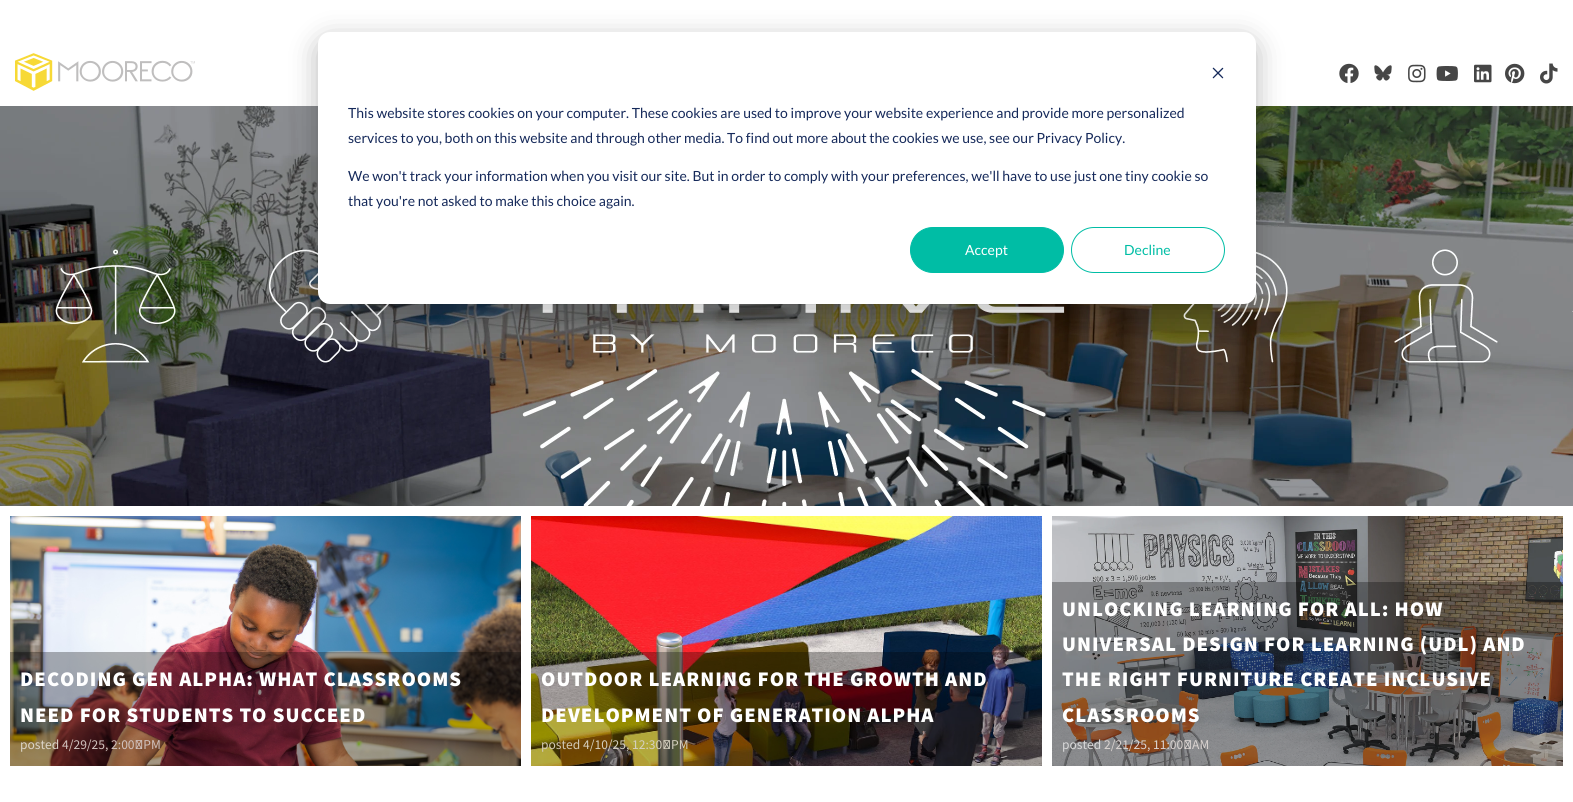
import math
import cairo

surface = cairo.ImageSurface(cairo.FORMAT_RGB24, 1573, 802)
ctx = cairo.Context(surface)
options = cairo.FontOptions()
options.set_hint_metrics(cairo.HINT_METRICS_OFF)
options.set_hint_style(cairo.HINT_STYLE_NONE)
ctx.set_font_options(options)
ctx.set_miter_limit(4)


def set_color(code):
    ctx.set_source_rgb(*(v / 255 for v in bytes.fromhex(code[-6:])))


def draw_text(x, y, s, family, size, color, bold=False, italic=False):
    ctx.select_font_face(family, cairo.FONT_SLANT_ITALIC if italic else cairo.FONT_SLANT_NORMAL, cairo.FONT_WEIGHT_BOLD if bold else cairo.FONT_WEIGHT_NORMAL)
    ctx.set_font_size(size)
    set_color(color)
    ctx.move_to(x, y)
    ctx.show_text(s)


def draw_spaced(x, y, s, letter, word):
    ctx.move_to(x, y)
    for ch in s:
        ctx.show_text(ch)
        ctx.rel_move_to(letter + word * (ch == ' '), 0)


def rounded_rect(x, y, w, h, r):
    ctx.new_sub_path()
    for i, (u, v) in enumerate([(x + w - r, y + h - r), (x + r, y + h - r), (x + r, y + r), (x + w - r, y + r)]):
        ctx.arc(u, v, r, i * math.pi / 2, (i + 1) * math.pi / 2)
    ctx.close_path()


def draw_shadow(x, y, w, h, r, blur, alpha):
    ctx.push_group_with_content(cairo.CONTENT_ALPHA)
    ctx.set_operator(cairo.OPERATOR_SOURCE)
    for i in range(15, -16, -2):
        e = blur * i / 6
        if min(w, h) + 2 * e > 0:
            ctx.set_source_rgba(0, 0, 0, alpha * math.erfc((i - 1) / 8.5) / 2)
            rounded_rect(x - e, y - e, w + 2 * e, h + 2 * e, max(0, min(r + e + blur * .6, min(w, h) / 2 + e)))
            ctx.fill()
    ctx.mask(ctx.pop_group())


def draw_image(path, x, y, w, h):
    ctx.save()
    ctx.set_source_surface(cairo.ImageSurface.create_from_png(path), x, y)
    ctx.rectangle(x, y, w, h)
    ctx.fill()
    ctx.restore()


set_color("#ffffff")
ctx.paint()
draw_image("assets/img10.png", 0, 106, 1573, 400)
set_color("#000000")
draw_shadow(318, 40, 938, 272, 12, 14, 0.28)
set_color("#ffffff")
rounded_rect(318, 32, 938, 272, 12)
ctx.fill()
draw_image("assets/img1.png", 1212, 67, 12, 12)
draw_text(348, 118, "This website stores cookies on your computer. These cookies are used to improve your website experience and provide more personalized", "Lato", 14, "#15295a")
draw_text(348, 143, "services to you, both on this website and through other media. To find out more about the cookies we use, see our Privacy Policy.", "Lato", 14, "#15295a")
draw_text(348, 181, "We won't track your information when you visit our site. But in order to comply with your preferences, we'll have to use just one tiny cookie so", "Lato", 14, "#15295a")
draw_text(348, 206, "that you're not asked to make this choice again.", "Lato", 14, "#15295a")
set_color("#00bda5")
rounded_rect(910.5, 227.5, 153, 45, 22.5)
ctx.fill_preserve()
ctx.set_line_width(1)
ctx.stroke()
draw_text(965, 255, "Accept", "Lato", 14, "#ffffff")
rounded_rect(1071.5, 227.5, 153, 45, 22.5)
set_color("#00bda5")
ctx.stroke()
draw_text(1124, 255, "Decline", "Lato", 14, "#00bda5")
draw_image("assets/img2.png", 15, 53, 180, 38)
draw_image("assets/img3.png", 1339, 63, 20, 20)
draw_image("assets/img4.png", 1374, 65, 18, 16)
draw_image("assets/img5.png", 1408, 64, 18, 19)
draw_image("assets/img6.png", 1436, 66, 22, 15)
draw_image("assets/img7.png", 1474, 64, 18, 19)
draw_image("assets/img8.png", 1505, 63, 20, 21)
draw_image("assets/img9.png", 1540, 63, 18, 21)
draw_image("assets/img11.png", 10, 516, 511, 250)
ctx.set_source_rgba(0, 0, 0, 0.3)
ctx.rectangle(10, 652, 511, 114)
ctx.fill()
ctx.select_font_face("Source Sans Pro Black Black")
ctx.set_font_size(20.8)
set_color("#ffffff")
draw_spaced(20, 686, "DECODING GEN ALPHA: WHAT CLASSROOMS", 1, 0)
draw_spaced(20, 722, "NEED FOR STUDENTS TO SUCCEED", 1, 0)
draw_text(20, 749, "posted", "Source Sans Pro", 13.5, "#dbd4c8")
draw_text(62, 749, "4/29/25, 2:00 PM", "Source Sans Pro", 13.5, "#d1c3bf")
draw_image("assets/img12.png", 531, 516, 511, 250)
ctx.set_source_rgba(0, 0, 0, 0.3)
ctx.rectangle(531, 652, 511, 114)
ctx.fill()
ctx.select_font_face("Source Sans Pro Black Black")
ctx.set_font_size(20.8)
set_color("#ffffff")
draw_spaced(541, 686, "OUTDOOR LEARNING FOR THE GROWTH AND", 1, 0)
draw_spaced(541, 722, "DEVELOPMENT OF GENERATION ALPHA", 1, 0)
draw_text(541, 749, "posted", "Source Sans Pro", 13.5, "#d1c9b5")
draw_text(583, 749, "4/10/25, 12:30 PM", "Source Sans Pro", 13.5, "#d5d0bf")
draw_image("assets/img13.png", 1052, 516, 511, 250)
ctx.set_source_rgba(0, 0, 0, 0.3)
ctx.rectangle(1052, 582, 511, 184)
ctx.fill()
ctx.select_font_face("Source Sans Pro Black Black")
ctx.set_font_size(20.8)
set_color("#ffffff")
draw_spaced(1062, 616, "UNLOCKING LEARNING FOR ALL: HOW", 1, 0)
draw_spaced(1062, 651, "UNIVERSAL DESIGN FOR LEARNING (UDL) AND", 1, 0)
draw_spaced(1062, 686, "THE RIGHT FURNITURE CREATE INCLUSIVE", 1, 0)
draw_spaced(1062, 722, "CLASSROOMS", 1, 0)
draw_text(1062, 749, "posted", "Source Sans Pro", 13.5, "#d8d8d9")
draw_text(1104, 749, "2/21/25, 11:00 AM", "Source Sans Pro", 13.5, "#dad3d0")
surface.write_to_png("output.png")
